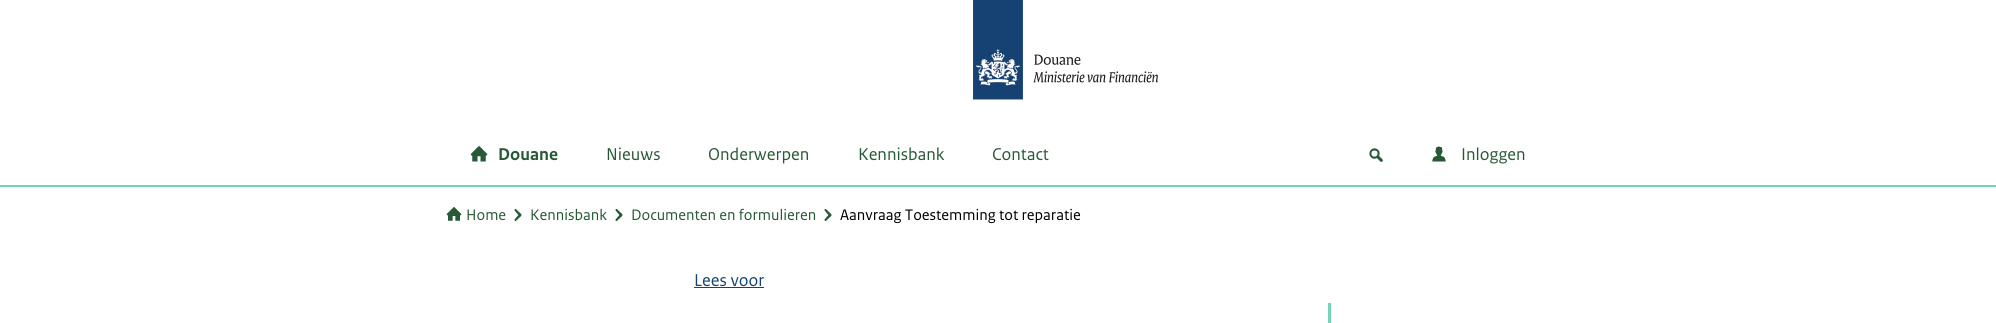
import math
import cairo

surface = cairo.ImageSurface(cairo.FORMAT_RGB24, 1996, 323)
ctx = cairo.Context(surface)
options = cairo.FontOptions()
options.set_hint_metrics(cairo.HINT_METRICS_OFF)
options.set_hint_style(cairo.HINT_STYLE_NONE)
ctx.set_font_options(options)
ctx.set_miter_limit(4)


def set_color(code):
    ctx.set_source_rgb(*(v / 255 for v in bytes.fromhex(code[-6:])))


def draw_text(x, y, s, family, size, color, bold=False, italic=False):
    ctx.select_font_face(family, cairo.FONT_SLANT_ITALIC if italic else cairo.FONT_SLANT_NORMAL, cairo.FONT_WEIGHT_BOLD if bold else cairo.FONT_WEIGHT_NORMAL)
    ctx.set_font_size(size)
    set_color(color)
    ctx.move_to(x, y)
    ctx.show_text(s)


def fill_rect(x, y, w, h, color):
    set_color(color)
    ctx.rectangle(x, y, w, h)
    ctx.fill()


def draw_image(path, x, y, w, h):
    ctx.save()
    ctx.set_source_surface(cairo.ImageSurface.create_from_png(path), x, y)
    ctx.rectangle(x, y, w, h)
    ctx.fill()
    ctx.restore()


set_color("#ffffff")
ctx.paint()
draw_image("assets/img1.png", 973, 0, 185, 100)
fill_rect(0, 185, 1996, 2, "#76d2b6")
draw_image("assets/img2.png", 470, 146, 18, 16)
draw_text(498, 160, "Douane", "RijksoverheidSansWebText", 18, "#275937", bold=True)
draw_text(606, 160, "Nieuws", "RijksoverheidSansWebText", 18, "#275937")
draw_text(708, 160, "Onderwerpen", "RijksoverheidSansWebText", 18, "#275937")
draw_text(858, 160, "Kennisbank", "RijksoverheidSansWebText", 18, "#275937")
draw_text(992, 160, "Contact", "RijksoverheidSansWebText", 18, "#275937")
draw_image("assets/img3.png", 1369, 148, 14, 14)
draw_image("assets/img4.png", 1432, 146, 14, 16)
draw_text(1461, 160, "Inloggen", "RijksoverheidSansWebText", 18, "#275937")
draw_image("assets/img5.png", 446, 207, 16, 14)
draw_text(466, 220, "Home", "RijksoverheidSansWebText", 16, "#275937")
draw_image("assets/img6.png", 514, 209, 8, 12)
draw_text(530, 220, "Kennisbank", "RijksoverheidSansWebText", 16, "#275937")
draw_image("assets/img6.png", 615, 209, 8, 12)
draw_text(631, 220, "Documenten en formulieren", "RijksoverheidSansWebText", 16, "#275937")
draw_image("assets/img6.png", 824, 209, 8, 12)
draw_text(840, 220, "Aanvraag Toestemming tot reparatie", "RijksoverheidSansWebText", 16, "#000000")
draw_text(694, 286, "Lees voor", "RijksoverheidSansWebText", 18, "#154273")
fill_rect(694, 287, 70, 1, "#154273")
fill_rect(1328, 303, 3, 20, "#76d2b6")
surface.write_to_png("output.png")
